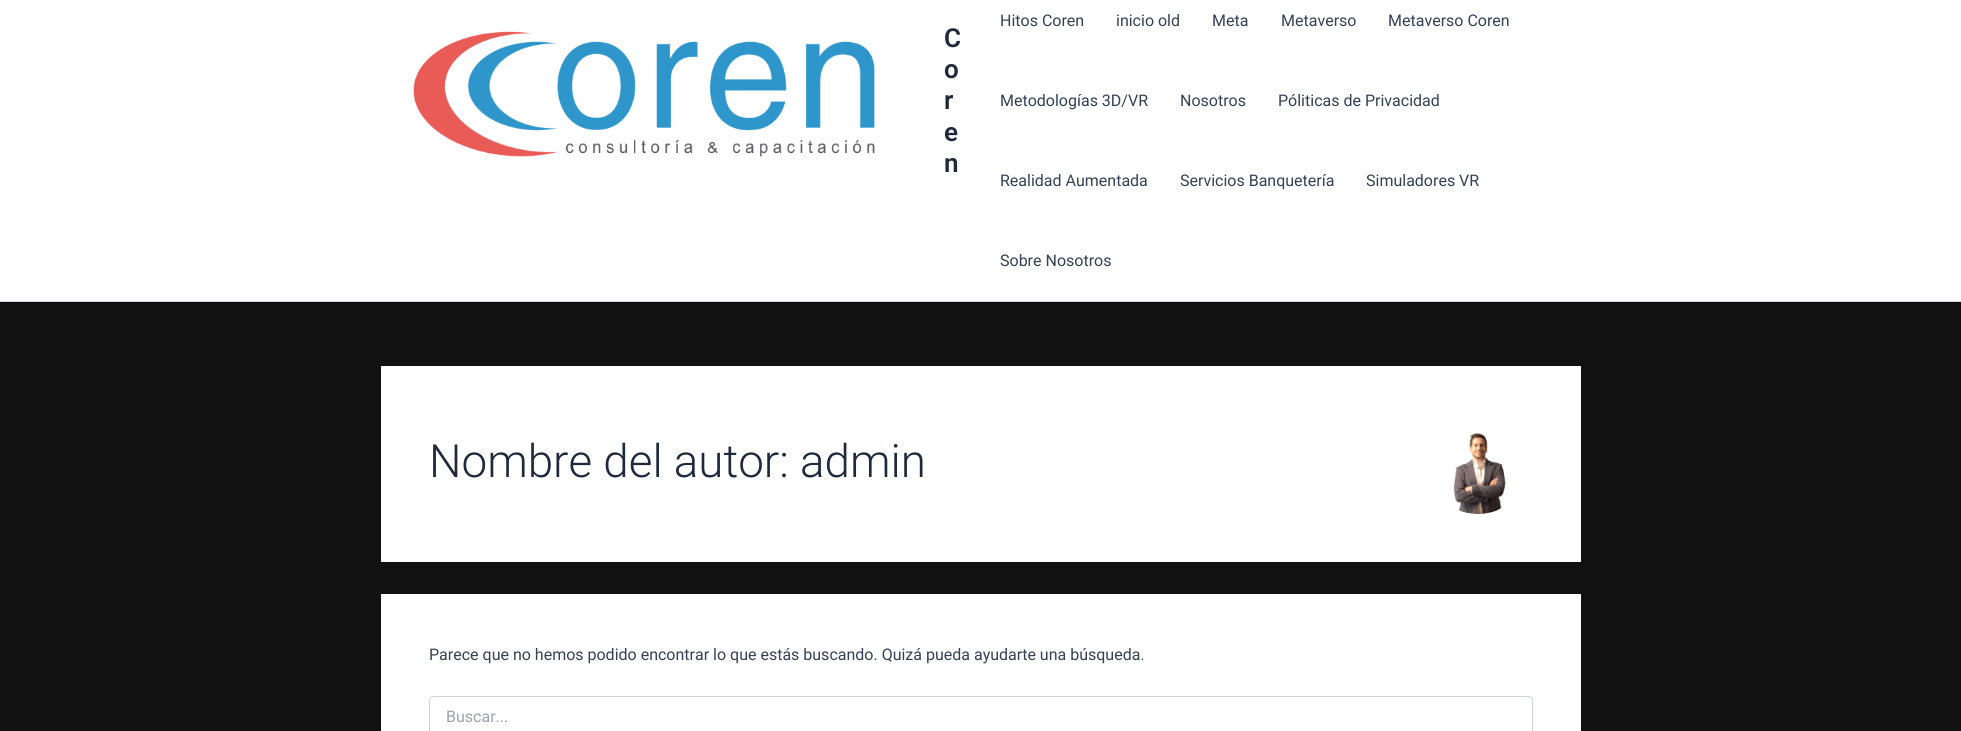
import math
import cairo

surface = cairo.ImageSurface(cairo.FORMAT_RGB24, 1961, 731)
ctx = cairo.Context(surface)
options = cairo.FontOptions()
options.set_hint_metrics(cairo.HINT_METRICS_OFF)
options.set_hint_style(cairo.HINT_STYLE_NONE)
ctx.set_font_options(options)
ctx.set_miter_limit(4)


def set_color(code):
    ctx.set_source_rgb(*(v / 255 for v in bytes.fromhex(code[-6:])))


def draw_text(x, y, s, family, size, color, bold=False, italic=False):
    ctx.select_font_face(family, cairo.FONT_SLANT_ITALIC if italic else cairo.FONT_SLANT_NORMAL, cairo.FONT_WEIGHT_BOLD if bold else cairo.FONT_WEIGHT_NORMAL)
    ctx.set_font_size(size)
    set_color(color)
    ctx.move_to(x, y)
    ctx.show_text(s)


def fill_rect(x, y, w, h, color):
    set_color(color)
    ctx.rectangle(x, y, w, h)
    ctx.fill()


def rounded_rect(x, y, w, h, r):
    ctx.new_sub_path()
    for i, (u, v) in enumerate([(x + w - r, y + h - r), (x + r, y + h - r), (x + r, y + r), (x + w - r, y + r)]):
        ctx.arc(u, v, r, i * math.pi / 2, (i + 1) * math.pi / 2)
    ctx.close_path()


def draw_image(path, x, y, w, h):
    ctx.save()
    ctx.set_source_surface(cairo.ImageSurface.create_from_png(path), x, y)
    ctx.rectangle(x, y, w, h)
    ctx.fill()
    ctx.restore()


set_color("#111111")
ctx.paint()
fill_rect(0, 0, 1961, 301, "#ffffff")
fill_rect(0, 301, 1961, 1, "#d1d5db")
draw_image("assets/img1.png", 413, 31, 462, 126)
draw_text(944, 47, "C", "Roboto SemiBold", 26, "#1e293b")
draw_text(944, 78, "o", "Roboto SemiBold", 26, "#1e293b")
draw_text(944, 109, "r", "Roboto SemiBold", 26, "#1e293b")
draw_text(944, 141, "e", "Roboto SemiBold", 26, "#1e293b")
draw_text(944, 172, "n", "Roboto SemiBold", 26, "#1e293b")
draw_text(1000, 26, "Hitos Coren", "Roboto", 16, "#334155")
draw_text(1116, 26, "inicio old", "Roboto", 16, "#334155")
draw_text(1212, 26, "Meta", "Roboto", 16, "#334155")
draw_text(1281, 26, "Metaverso", "Roboto", 16, "#334155")
draw_text(1388, 26, "Metaverso Coren", "Roboto", 16, "#334155")
draw_text(1000, 106, "Metodologías 3D/VR", "Roboto", 16, "#334155")
draw_text(1180, 106, "Nosotros", "Roboto", 16, "#334155")
draw_text(1278, 106, "Póliticas de Privacidad", "Roboto", 16, "#334155")
draw_text(1000, 186, "Realidad Aumentada", "Roboto", 16, "#334155")
draw_text(1180, 186, "Servicios Banquetería", "Roboto", 16, "#334155")
draw_text(1366, 186, "Simuladores VR", "Roboto", 16, "#334155")
draw_text(1000, 266, "Sobre Nosotros", "Roboto", 16, "#334155")
fill_rect(381, 366, 1200, 196, "#ffffff")
draw_text(429, 477, "Nombre del autor: admin", "Roboto Light", 45.75, "#1e293b")
draw_image("assets/img2.png", 1453, 433, 53, 81)
fill_rect(381, 594, 1200, 137, "#ffffff")
draw_text(429, 660, "Parece que no hemos podido encontrar lo que estás buscando. Quizá pueda ayudarte una búsqueda.", "Roboto", 16, "#334155")
rounded_rect(429.5, 696.5, 1103, 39, 3.5)
set_color("#d1d5db")
ctx.set_line_width(1)
ctx.stroke()
draw_text(446, 722, "Buscar...", "Roboto", 16, "#9ca3af")
surface.write_to_png("output.png")
